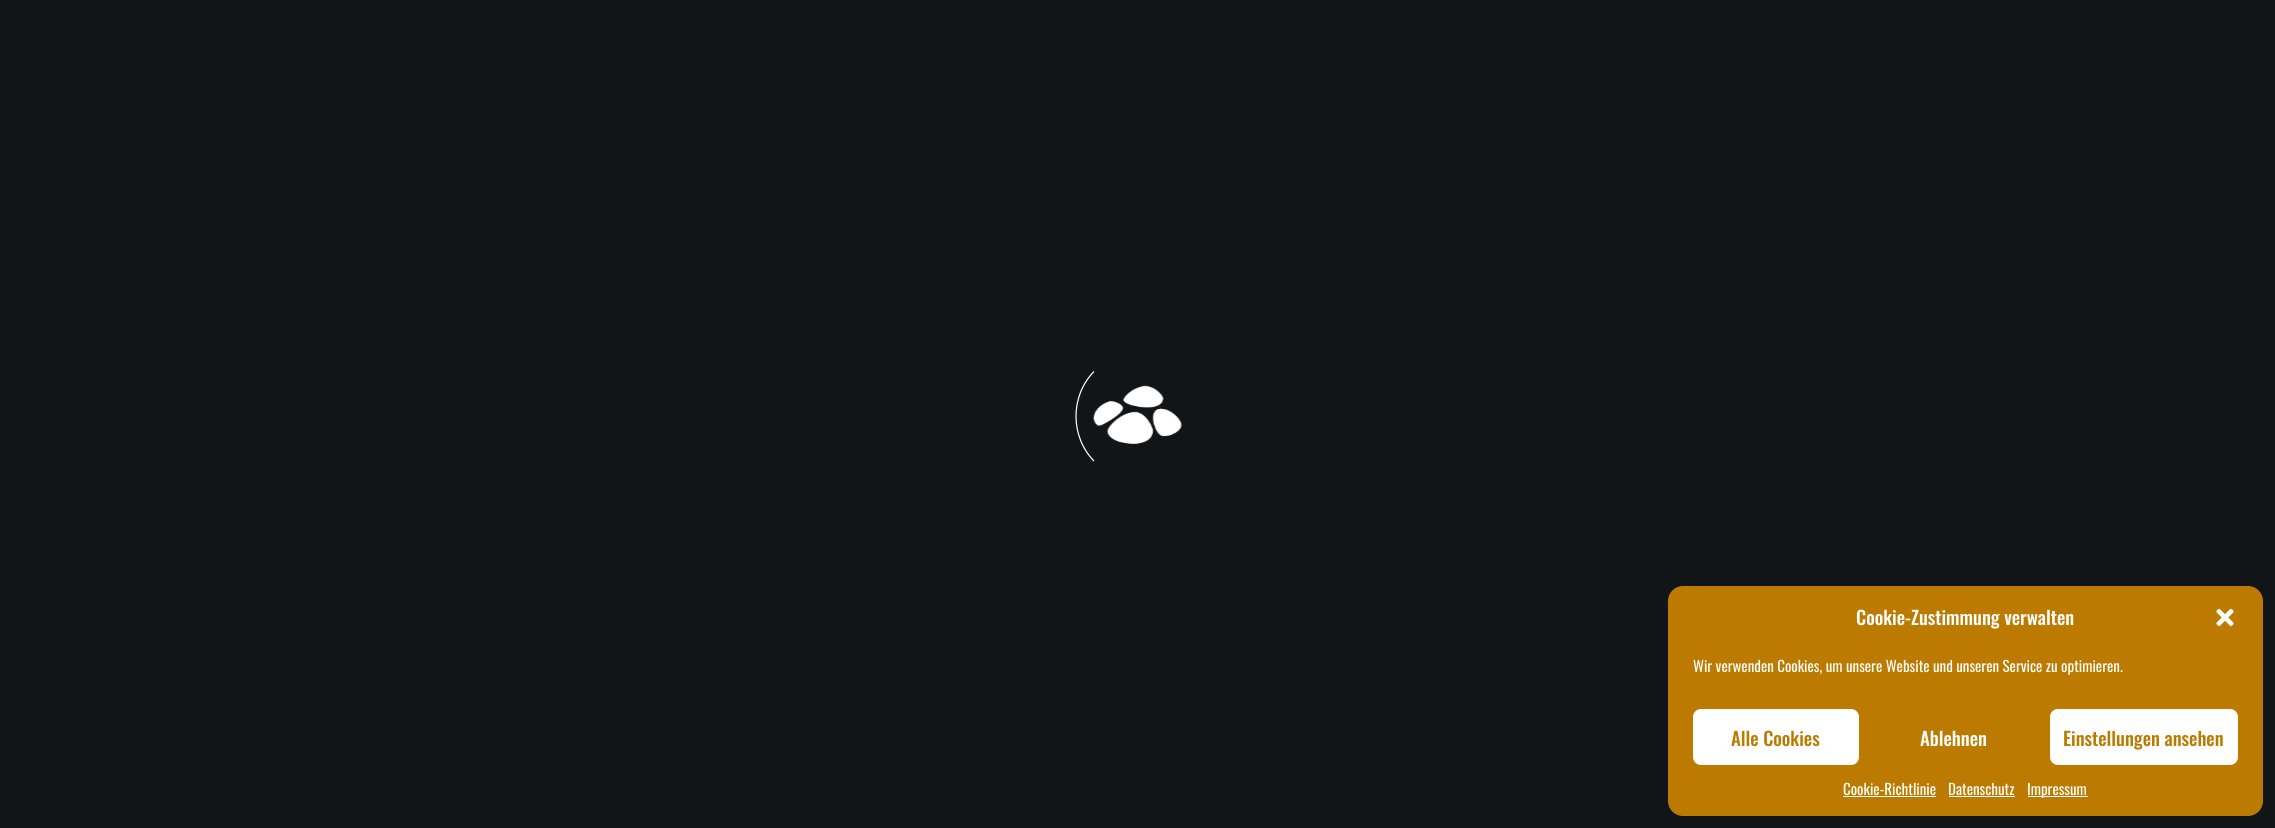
import math
import cairo

surface = cairo.ImageSurface(cairo.FORMAT_RGB24, 2275, 828)
ctx = cairo.Context(surface)
options = cairo.FontOptions()
options.set_hint_metrics(cairo.HINT_METRICS_OFF)
options.set_hint_style(cairo.HINT_STYLE_NONE)
ctx.set_font_options(options)
ctx.set_miter_limit(4)


def set_color(code):
    ctx.set_source_rgb(*(v / 255 for v in bytes.fromhex(code[-6:])))


def draw_text(x, y, s, family, size, color, bold=False, italic=False):
    ctx.select_font_face(family, cairo.FONT_SLANT_ITALIC if italic else cairo.FONT_SLANT_NORMAL, cairo.FONT_WEIGHT_BOLD if bold else cairo.FONT_WEIGHT_NORMAL)
    ctx.set_font_size(size)
    set_color(color)
    ctx.move_to(x, y)
    ctx.show_text(s)


def fill_rect(x, y, w, h, color):
    set_color(color)
    ctx.rectangle(x, y, w, h)
    ctx.fill()


def rounded_rect(x, y, w, h, r):
    ctx.new_sub_path()
    for i, (u, v) in enumerate([(x + w - r, y + h - r), (x + r, y + h - r), (x + r, y + r), (x + w - r, y + r)]):
        ctx.arc(u, v, r, i * math.pi / 2, (i + 1) * math.pi / 2)
    ctx.close_path()


def draw_image(path, x, y, w, h):
    ctx.save()
    ctx.set_source_surface(cairo.ImageSurface.create_from_png(path), x, y)
    ctx.rectangle(x, y, w, h)
    ctx.fill()
    ctx.restore()


set_color("#111517")
ctx.paint()
ctx.new_path()
ctx.move_to(1094, 461)
ctx.curve_to(1070, 436.5, 1070, 396, 1094, 371.5)
set_color("#ffffff")
ctx.set_line_width(1.2)
ctx.stroke()
draw_image("assets/img1.png", 1093, 385, 89, 59)
set_color("#bc7b00")
rounded_rect(1668, 586, 595, 230, 15)
ctx.fill()
draw_text(1856, 625, "Cookie-Zustimmung verwalten", "Oswald Medium", 18.75, "#ffffff")
draw_image("assets/img2.png", 2216, 608, 18, 18)
draw_text(1693, 672, "Wir verwenden Cookies, um unsere Website und unseren Service zu optimieren.", "Oswald", 15, "#ffffff")
rounded_rect(1693.5, 709.5, 165, 55, 7.5)
ctx.fill_preserve()
ctx.set_line_width(1)
ctx.stroke()
draw_text(1731, 746, "Alle Cookies", "Oswald Medium", 18.75, "#bc7b00")
draw_text(1920, 746, "Ablehnen", "Oswald Medium", 18.75, "#ffffff")
rounded_rect(2050.5, 709.5, 187, 55, 7.5)
ctx.fill_preserve()
ctx.stroke()
draw_text(2063, 746, "Einstellungen ansehen", "Oswald Medium", 18.75, "#bc7b00")
draw_text(1843, 795, "Cookie-Richtlinie", "Oswald", 15, "#ffffff")
fill_rect(1843, 796, 93, 1, "#ffffff")
draw_text(1948, 795, "Datenschutz", "Oswald", 15, "#ffffff")
fill_rect(1949, 796, 66, 1, "#ffffff")
fill_rect(2028, 796, 60, 1, "#ffffff")
draw_text(2027, 795, "Impressum", "Oswald", 15, "#ffffff")
surface.write_to_png("output.png")
